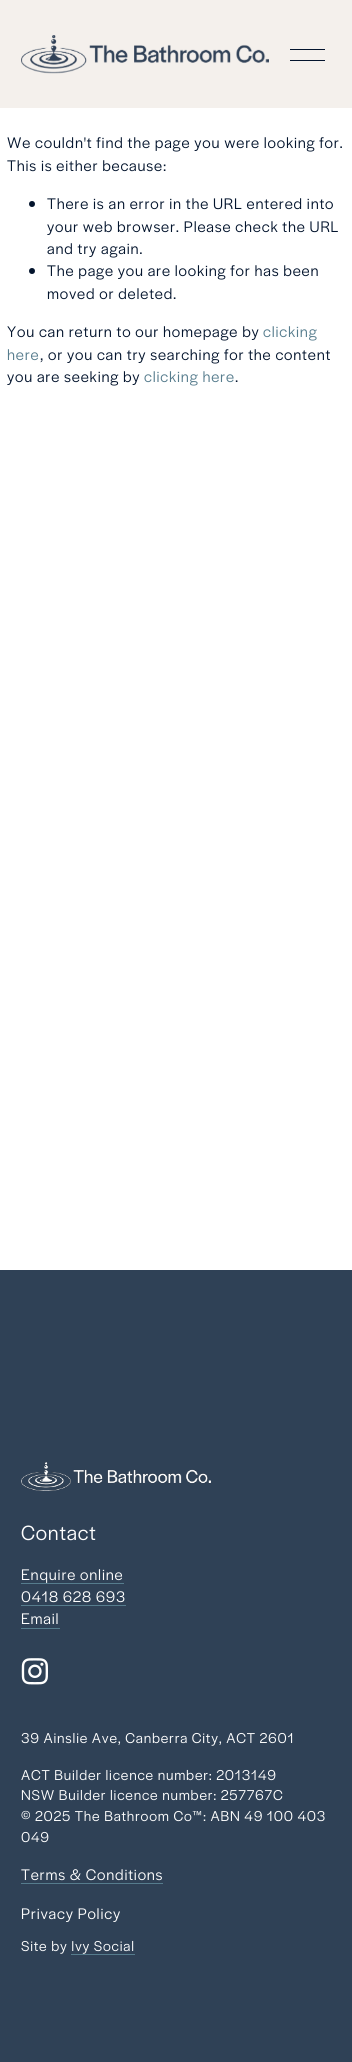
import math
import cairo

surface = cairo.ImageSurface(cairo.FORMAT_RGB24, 352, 2062)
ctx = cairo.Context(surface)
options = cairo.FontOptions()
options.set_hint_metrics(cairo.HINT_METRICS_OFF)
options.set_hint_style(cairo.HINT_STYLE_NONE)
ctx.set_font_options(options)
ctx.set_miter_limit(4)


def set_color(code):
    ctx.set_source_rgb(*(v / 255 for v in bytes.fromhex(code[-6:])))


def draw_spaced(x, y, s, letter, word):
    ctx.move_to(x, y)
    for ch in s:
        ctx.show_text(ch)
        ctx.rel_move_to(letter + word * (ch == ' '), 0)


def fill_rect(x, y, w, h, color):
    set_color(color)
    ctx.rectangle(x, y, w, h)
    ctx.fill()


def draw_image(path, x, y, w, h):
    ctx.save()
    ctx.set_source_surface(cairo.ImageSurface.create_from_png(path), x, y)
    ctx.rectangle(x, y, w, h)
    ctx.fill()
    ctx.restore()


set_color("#ffffff")
ctx.paint()
fill_rect(0, 0, 352, 108, "#f4f0ec")
draw_image("assets/img1.png", 21, 35, 248, 39)
fill_rect(290, 49, 35, 1, "#03142d")
fill_rect(290, 60, 35, 1, "#03142d")
ctx.select_font_face("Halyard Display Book")
ctx.set_font_size(16)
draw_spaced(7, 148, "We couldn't find the page you were looking for.", 0.8, 0)
draw_spaced(7, 171, "This is either because:", 0.8, 0)
ctx.new_path()
ctx.arc(32, 204, 3, 0, 2 * math.pi)
ctx.fill()
draw_spaced(47, 209, "There is an error in the URL entered into", 0.8, 0)
draw_spaced(47, 232, "your web browser. Please check the URL", 0.8, 0)
draw_spaced(47, 254, "and try again.", 0.8, 0)
ctx.new_path()
ctx.arc(32, 271, 3, 0, 2 * math.pi)
ctx.fill()
draw_spaced(47, 276, "The page you are looking for has been", 0.8, 0)
draw_spaced(47, 299, "moved or deleted.", 0.8, 0)
draw_spaced(7, 337, "You can return to our homepage by", 0.8, 0)
set_color("#567c8d")
draw_spaced(263, 337, "clicking", 0.8, 0)
draw_spaced(7, 360, "here", 0.8, 0)
set_color("#03142d")
draw_spaced(40, 360, ", or you can try searching for the content", 0.8, 0)
draw_spaced(7, 382, "you are seeking by", 0.8, 0)
set_color("#567c8d")
draw_spaced(144, 382, "clicking here", 0.8, 0)
set_color("#03142d")
draw_spaced(235, 382, ".", 0.8, 0)
fill_rect(0, 1270, 352, 792, "#2f4156")
draw_image("assets/img2.png", 21, 1462, 190, 29)
ctx.set_font_size(21.5)
set_color("#ffffff")
draw_spaced(21, 1540, "Contact", 0.8, 0)
ctx.set_font_size(16)
draw_spaced(21, 1580, "Enquire online", 0.8, 0)
fill_rect(21, 1583, 103, 1, "#567c8d")
set_color("#ffffff")
draw_spaced(21, 1602, "0418 628 693", 0.8, 0)
fill_rect(21, 1605, 105, 1, "#567c8d")
set_color("#ffffff")
draw_spaced(21, 1624, "Email", 0.8, 0)
fill_rect(21, 1628, 39, 1, "#567c8d")
draw_image("assets/img3.png", 21, 1658, 27, 27)
ctx.set_font_size(14.9)
set_color("#ffffff")
draw_spaced(21, 1743, "39 Ainslie Ave, Canberra City, ACT 2601", 0.8, 0)
draw_spaced(21, 1780, "ACT Builder licence number: 2013149", 0.8, 0)
draw_spaced(21, 1800, "NSW Builder licence number: 257767C", 0.8, 0)
draw_spaced(21, 1821, "© 2025 The Bathroom Co™: ABN 49 100 403", 0.8, 0)
draw_spaced(21, 1842, "049", 0.8, 0)
ctx.set_font_size(16)
draw_spaced(21, 1880, "Terms & Conditions", 0.8, 0)
fill_rect(21, 1883, 142, 1, "#567c8d")
set_color("#ffffff")
draw_spaced(21, 1919, "Privacy Policy", 0.8, 0)
ctx.set_font_size(14.9)
draw_spaced(21, 1951, "Site by Ivy Social", 0.8, 0)
fill_rect(71, 1954, 64, 1, "#567c8d")
surface.write_to_png("output.png")
